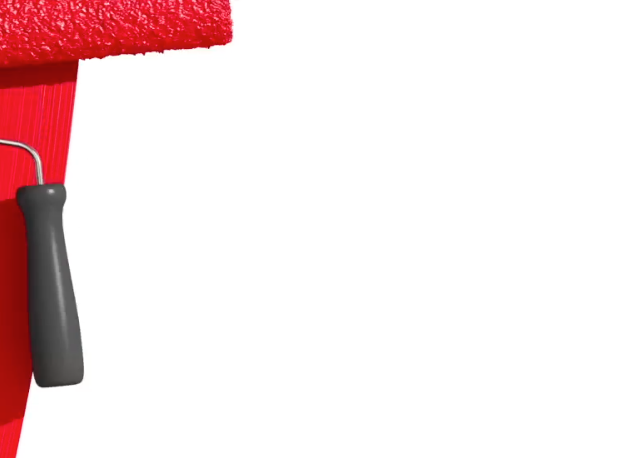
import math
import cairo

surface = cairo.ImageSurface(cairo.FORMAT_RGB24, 638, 458)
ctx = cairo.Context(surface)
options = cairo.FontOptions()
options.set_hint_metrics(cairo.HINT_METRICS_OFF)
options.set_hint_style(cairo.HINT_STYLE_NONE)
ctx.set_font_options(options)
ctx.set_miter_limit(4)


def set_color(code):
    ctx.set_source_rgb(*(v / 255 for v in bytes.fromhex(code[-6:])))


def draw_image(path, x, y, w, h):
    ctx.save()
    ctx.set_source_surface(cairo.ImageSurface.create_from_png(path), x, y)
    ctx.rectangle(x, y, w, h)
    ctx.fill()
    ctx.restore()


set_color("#ffffff")
ctx.paint()
draw_image("assets/img1.png", 0, 0, 638, 458)
surface.write_to_png("output.png")
